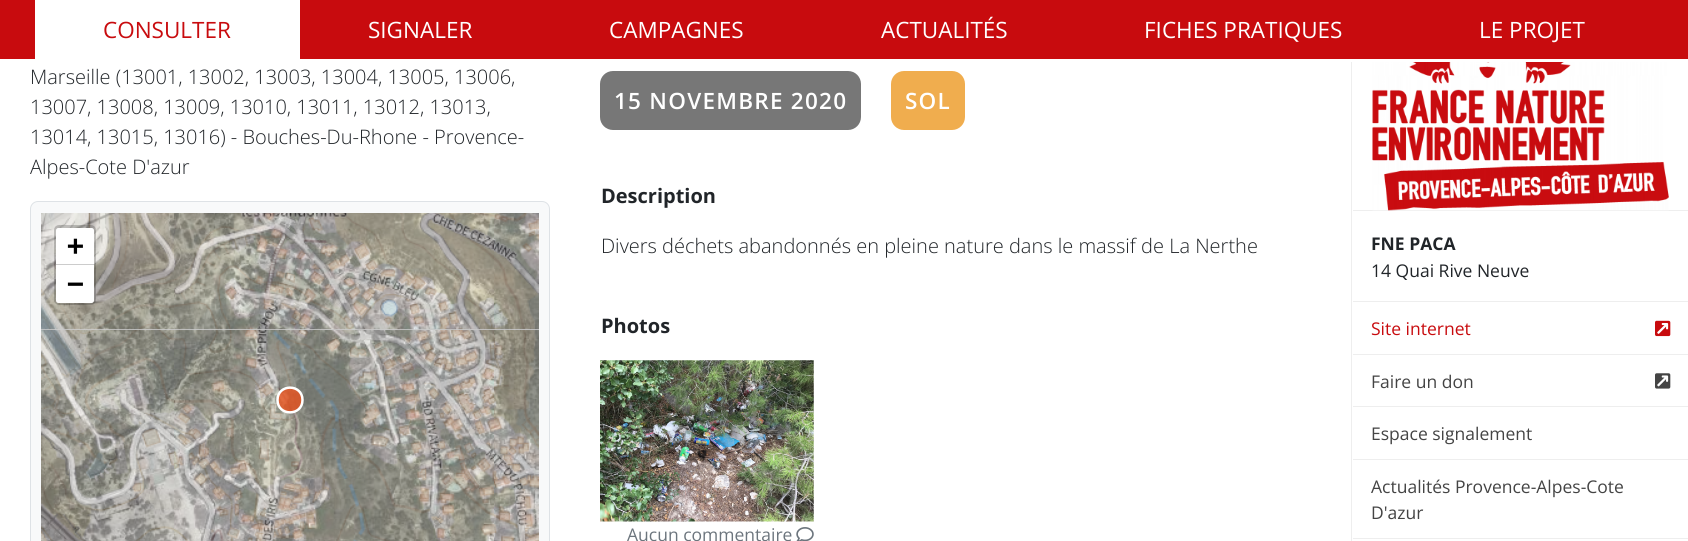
import math
import cairo

surface = cairo.ImageSurface(cairo.FORMAT_RGB24, 1688, 541)
ctx = cairo.Context(surface)
options = cairo.FontOptions()
options.set_hint_metrics(cairo.HINT_METRICS_OFF)
options.set_hint_style(cairo.HINT_STYLE_NONE)
ctx.set_font_options(options)
ctx.set_miter_limit(4)


def set_color(code):
    ctx.set_source_rgb(*(v / 255 for v in bytes.fromhex(code[-6:])))


def draw_text(x, y, s, family, size, color, bold=False, italic=False):
    ctx.select_font_face(family, cairo.FONT_SLANT_ITALIC if italic else cairo.FONT_SLANT_NORMAL, cairo.FONT_WEIGHT_BOLD if bold else cairo.FONT_WEIGHT_NORMAL)
    ctx.set_font_size(size)
    set_color(color)
    ctx.move_to(x, y)
    ctx.show_text(s)


def draw_spaced(x, y, s, letter, word):
    ctx.move_to(x, y)
    for ch in s:
        ctx.show_text(ch)
        ctx.rel_move_to(letter + word * (ch == ' '), 0)


def fill_rect(x, y, w, h, color):
    set_color(color)
    ctx.rectangle(x, y, w, h)
    ctx.fill()


def rounded_rect(x, y, w, h, r):
    ctx.new_sub_path()
    for i, (u, v) in enumerate([(x + w - r, y + h - r), (x + r, y + h - r), (x + r, y + r), (x + w - r, y + r)]):
        ctx.arc(u, v, r, i * math.pi / 2, (i + 1) * math.pi / 2)
    ctx.close_path()


def draw_image(path, x, y, w, h):
    ctx.save()
    ctx.set_source_surface(cairo.ImageSurface.create_from_png(path), x, y)
    ctx.rectangle(x, y, w, h)
    ctx.fill()
    ctx.restore()


set_color("#ffffff")
ctx.paint()
fill_rect(0, 0, 1688, 59, "#c80b0e")
fill_rect(35, 0, 265, 59, "#ffffff")
draw_text(103, 38, "CONSULTER", "Open Sans", 22.5, "#c80b0e")
draw_text(368, 38, "SIGNALER", "Open Sans", 22.5, "#ffffff")
draw_text(609, 38, "CAMPAGNES", "Open Sans", 22.5, "#ffffff")
draw_text(881, 38, "ACTUALITÉS", "Open Sans", 22.5, "#ffffff")
draw_text(1144, 38, "FICHES PRATIQUES", "Open Sans", 22.5, "#ffffff")
draw_text(1479, 38, "LE PROJET", "Open Sans", 22.5, "#ffffff")
draw_text(30, 84, "Marseille (13001, 13002, 13003, 13004, 13005, 13006,", "Open Sans Light", 20, "#212529")
draw_text(30, 114, "13007, 13008, 13009, 13010, 13011, 13012, 13013,", "Open Sans Light", 20, "#212529")
draw_text(30, 144, "13014, 13015, 13016) - Bouches-Du-Rhone - Provence-", "Open Sans Light", 20, "#212529")
draw_text(30, 174, "Alpes-Cote D'azur", "Open Sans Light", 20, "#212529")
set_color("#f8f9fa")
rounded_rect(30.5, 201.5, 519, 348, 7.5)
ctx.fill_preserve()
set_color("#dee2e6")
ctx.set_line_width(1)
ctx.stroke()
fill_rect(41, 328, 498, 2, "#cccccc")
draw_image("assets/img1.png", 41, 213, 133, 117)
draw_image("assets/img2.png", 174, 213, 320, 117)
draw_image("assets/img3.png", 494, 213, 45, 117)
draw_image("assets/img4.png", 41, 330, 133, 211)
draw_image("assets/img5.png", 174, 330, 320, 211)
draw_image("assets/img6.png", 494, 330, 45, 211)
draw_image("assets/img7.png", 41, 213, 133, 117)
draw_image("assets/img8.png", 174, 213, 320, 117)
draw_image("assets/img9.png", 494, 213, 45, 116)
draw_image("assets/img10.png", 41, 330, 133, 211)
draw_image("assets/img11.png", 174, 330, 320, 211)
draw_image("assets/img12.png", 494, 330, 45, 211)
ctx.set_source_rgba(0.91, 0.325, 0.118, 0.8)
ctx.set_fill_rule(cairo.FILL_RULE_EVEN_ODD)
ctx.new_path()
ctx.move_to(277.5, 400)
ctx.curve_to(277.5, 416.5, 302.5, 416.5, 302.5, 400)
ctx.curve_to(302.5, 383.5, 277.5, 383.5, 277.5, 400)
ctx.fill_preserve()
set_color("#ffffff")
ctx.set_line_width(2.5)
ctx.set_line_cap(cairo.LINE_CAP_ROUND)
ctx.set_line_join(cairo.LINE_JOIN_ROUND)
ctx.stroke()
rounded_rect(55.5, 226.5, 39, 77, 3.5)
ctx.set_source_rgba(0, 0, 0, 0.2)
ctx.set_line_width(3)
ctx.set_line_cap(cairo.LINE_CAP_BUTT)
ctx.set_line_join(cairo.LINE_JOIN_MITER)
ctx.stroke()
set_color("#ffffff")
ctx.new_path()
ctx.move_to(58.5, 228)
ctx.line_to(91.5, 228)
ctx.curve_to(93, 228, 94, 229, 94, 230.5)
ctx.line_to(94, 265)
ctx.line_to(56, 265)
ctx.line_to(56, 230.5)
ctx.curve_to(56, 229, 57, 228, 58.5, 228)
ctx.close_path()
ctx.fill()
fill_rect(56, 264, 38, 1, "#cccccc")
draw_text(67, 255, "+", "DejaVu Sans Mono", 28, "#000000", bold=True)
set_color("#ffffff")
ctx.new_path()
ctx.move_to(56, 265)
ctx.line_to(94, 265)
ctx.line_to(94, 300.5)
ctx.curve_to(94, 302, 93, 303, 91.5, 303)
ctx.line_to(58.5, 303)
ctx.curve_to(57, 303, 56, 302, 56, 300.5)
ctx.close_path()
ctx.fill()
draw_text(67, 293, "−", "DejaVu Sans Mono", 28, "#000000", bold=True)
set_color("#777777")
rounded_rect(600, 71, 261, 59, 13)
ctx.fill()
ctx.select_font_face("Open Sans SemiBold")
ctx.set_font_size(22.5)
set_color("#ffffff")
draw_spaced(614, 109, "15 NOVEMBRE 2020", 1.25, 0)
set_color("#f0ad4e")
rounded_rect(891, 71, 74, 59, 13)
ctx.fill()
set_color("#ffffff")
draw_spaced(905, 109, "SOL", 1.25, 0)
draw_text(601, 203, "Description", "Open Sans", 20, "#212529", bold=True)
draw_text(601, 253, "Divers déchets abandonnés en pleine nature dans le massif de La Nerthe", "Open Sans Light", 20, "#212529")
draw_text(601, 333, "Photos", "Open Sans", 20, "#212529", bold=True)
draw_image("assets/img13.png", 600, 360, 214, 162)
draw_text(627, 541, "Aucun commentaire", "Open Sans", 17.5, "#6c757d")
draw_image("assets/img14.png", 796, 527, 18, 14)
fill_rect(1351, 62, 1, 479, "#eeeeee")
fill_rect(1353, 210, 335, 1, "#eeeeee")
draw_image("assets/img15.png", 1372, 62, 297, 149)
draw_text(1371, 250, "FNE PACA", "Open Sans", 17.5, "#212529", bold=True)
draw_text(1371, 277, "14 Quai Rive Neuve", "Open Sans", 17.5, "#212529")
fill_rect(1353, 538, 335, 1, "#eeeeee")
fill_rect(1353, 301, 335, 1, "#eeeeee")
draw_text(1371, 335, "Site internet", "Open Sans", 17.5, "#c80b0e")
draw_image("assets/img16.png", 1655, 320, 16, 17)
fill_rect(1353, 354, 335, 1, "#eeeeee")
draw_text(1371, 388, "Faire un don", "Open Sans", 17.5, "#444444")
draw_image("assets/img17.png", 1655, 373, 16, 16)
fill_rect(1353, 406, 335, 1, "#eeeeee")
draw_text(1371, 440, "Espace signalement", "Open Sans", 17.5, "#444444")
fill_rect(1353, 459, 335, 1, "#eeeeee")
draw_text(1371, 493, "Actualités Provence-Alpes-Cote", "Open Sans", 17.5, "#444444")
draw_text(1371, 519, "D'azur", "Open Sans", 17.5, "#444444")
surface.write_to_png("output.png")
